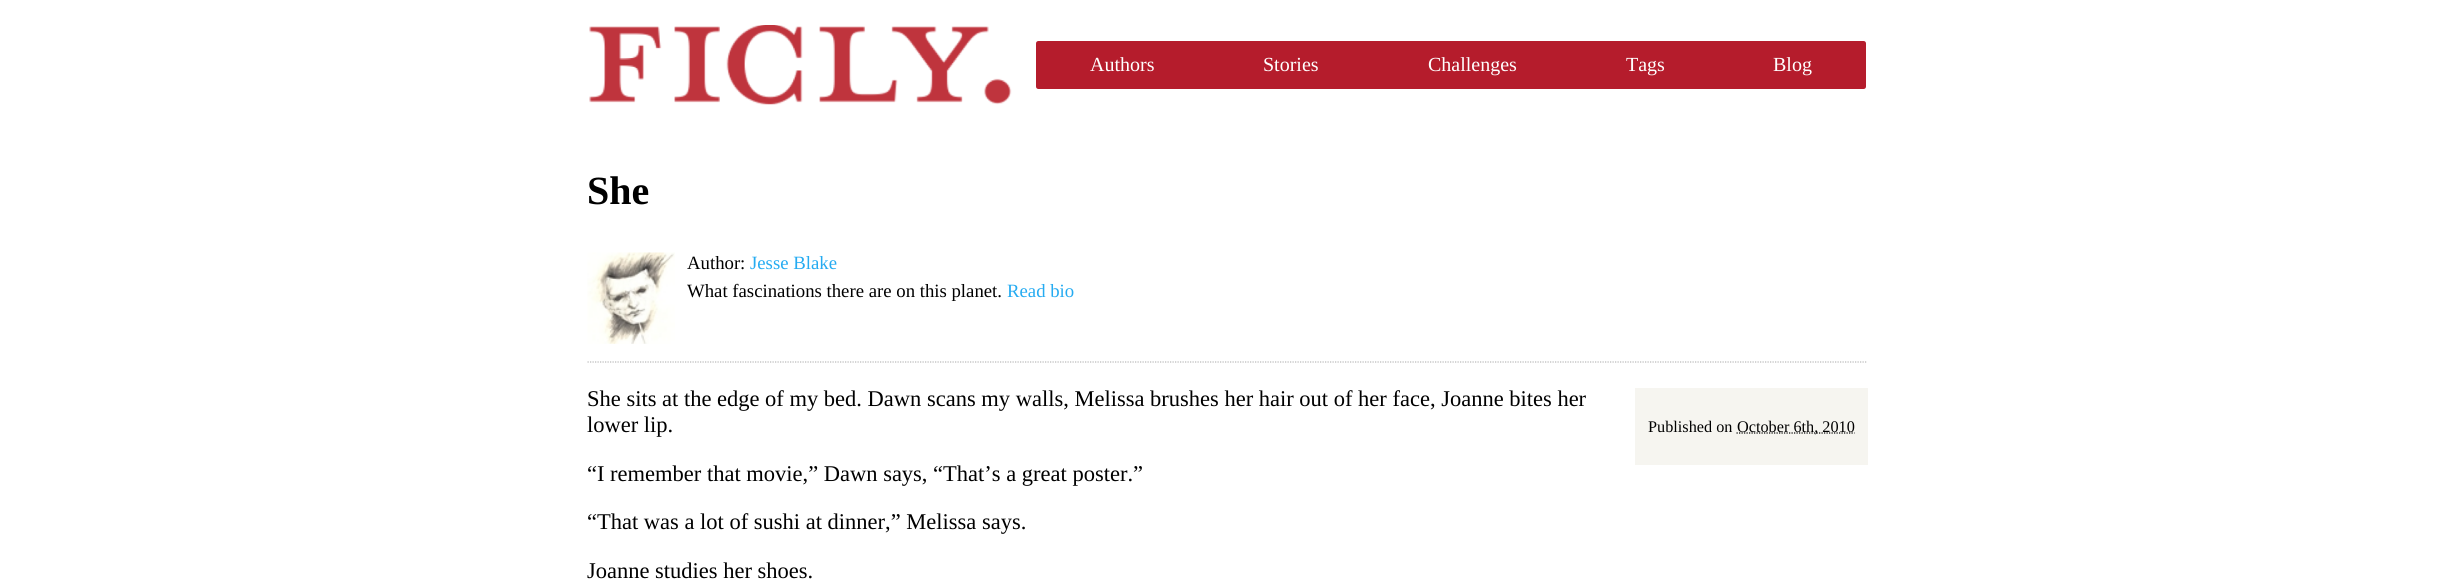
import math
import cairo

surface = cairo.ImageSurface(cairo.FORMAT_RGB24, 2453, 586)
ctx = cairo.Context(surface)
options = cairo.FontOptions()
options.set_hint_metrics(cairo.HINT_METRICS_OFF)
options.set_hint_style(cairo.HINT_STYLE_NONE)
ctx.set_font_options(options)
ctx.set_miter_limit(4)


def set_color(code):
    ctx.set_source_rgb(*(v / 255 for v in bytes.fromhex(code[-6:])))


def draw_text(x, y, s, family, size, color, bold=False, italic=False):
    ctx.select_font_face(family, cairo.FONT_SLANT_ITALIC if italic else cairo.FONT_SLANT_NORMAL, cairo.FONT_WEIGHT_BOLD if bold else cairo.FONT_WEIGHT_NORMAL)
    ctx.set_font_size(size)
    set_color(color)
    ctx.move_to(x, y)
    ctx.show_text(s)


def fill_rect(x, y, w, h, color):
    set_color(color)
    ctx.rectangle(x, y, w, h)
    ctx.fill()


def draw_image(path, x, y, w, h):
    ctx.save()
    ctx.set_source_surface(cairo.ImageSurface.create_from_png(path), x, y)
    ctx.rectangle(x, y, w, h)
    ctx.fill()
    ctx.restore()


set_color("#ffffff")
ctx.paint()
draw_image("assets/img1.png", 589, 25, 423, 80)
set_color("#b51c2c")
ctx.new_path()
ctx.move_to(1038.5, 41)
ctx.line_to(1209, 41)
ctx.line_to(1209, 89)
ctx.line_to(1038.5, 89)
ctx.curve_to(1037, 89, 1036, 88, 1036, 86.5)
ctx.line_to(1036, 43.5)
ctx.curve_to(1036, 42, 1037, 41, 1038.5, 41)
ctx.close_path()
ctx.fill()
draw_text(1090, 71, "Authors", "Liberation Serif", 20, "#ffffff")
fill_rect(1209, 41, 510, 48, "#b51c2c")
draw_text(1263, 71, "Stories", "Liberation Serif", 20, "#ffffff")
draw_text(1428, 71, "Challenges", "Liberation Serif", 20, "#ffffff")
draw_text(1626, 71, "Tags", "Liberation Serif", 20, "#ffffff")
set_color("#b51c2c")
ctx.new_path()
ctx.move_to(1719, 41)
ctx.line_to(1863.5, 41)
ctx.curve_to(1865, 41, 1866, 42, 1866, 43.5)
ctx.line_to(1866, 86.5)
ctx.curve_to(1866, 88, 1865, 89, 1863.5, 89)
ctx.line_to(1719, 89)
ctx.close_path()
ctx.fill()
draw_text(1773, 71, "Blog", "Liberation Serif", 20, "#ffffff")
draw_text(587, 204, "She", "Liberation Serif", 40, "#000000", bold=True)
ctx.new_path()
ctx.move_to(587.5, 362)
ctx.line_to(1867.5, 362)
set_color("#b8b8b8")
ctx.set_line_width(1.2)
ctx.set_dash([1.25, 1.25])
ctx.stroke()
draw_image("assets/img2.png", 587, 252, 88, 92)
draw_text(687, 269, "Author:", "Liberation Serif", 18.75, "#000000")
draw_text(750, 269, "Jesse Blake", "Liberation Serif", 18.75, "#25abf1")
draw_text(687, 297, "What fascinations there are on this planet.", "Liberation Serif", 18.75, "#000000")
draw_text(1007, 297, "Read bio", "Liberation Serif", 18.75, "#25abf1")
draw_text(587, 406, "She sits at the edge of my bed. Dawn scans my walls, Melissa brushes her hair out of her face, Joanne bites her", "Liberation Serif", 22.5, "#000000")
draw_text(587, 432, "lower lip.", "Liberation Serif", 22.5, "#000000")
draw_text(587, 481, "“I remember that movie,” Dawn says, “That’s a great poster.”", "Liberation Serif", 22.5, "#000000")
draw_text(587, 529, "“That was a lot of sushi at dinner,” Melissa says.", "Liberation Serif", 22.5, "#000000")
draw_text(587, 578, "Joanne studies her shoes.", "Liberation Serif", 22.5, "#000000")
fill_rect(1635, 388, 233, 77, "#f6f5f0")
draw_text(1648, 432, "Published on", "Liberation Serif", 16.25, "#000000")
ctx.new_path()
ctx.move_to(1736.5, 433)
ctx.line_to(1854.5, 433)
ctx.stroke()
draw_text(1737, 432, "October 6th, 2010", "Liberation Serif", 16.25, "#000000")
surface.write_to_png("output.png")
